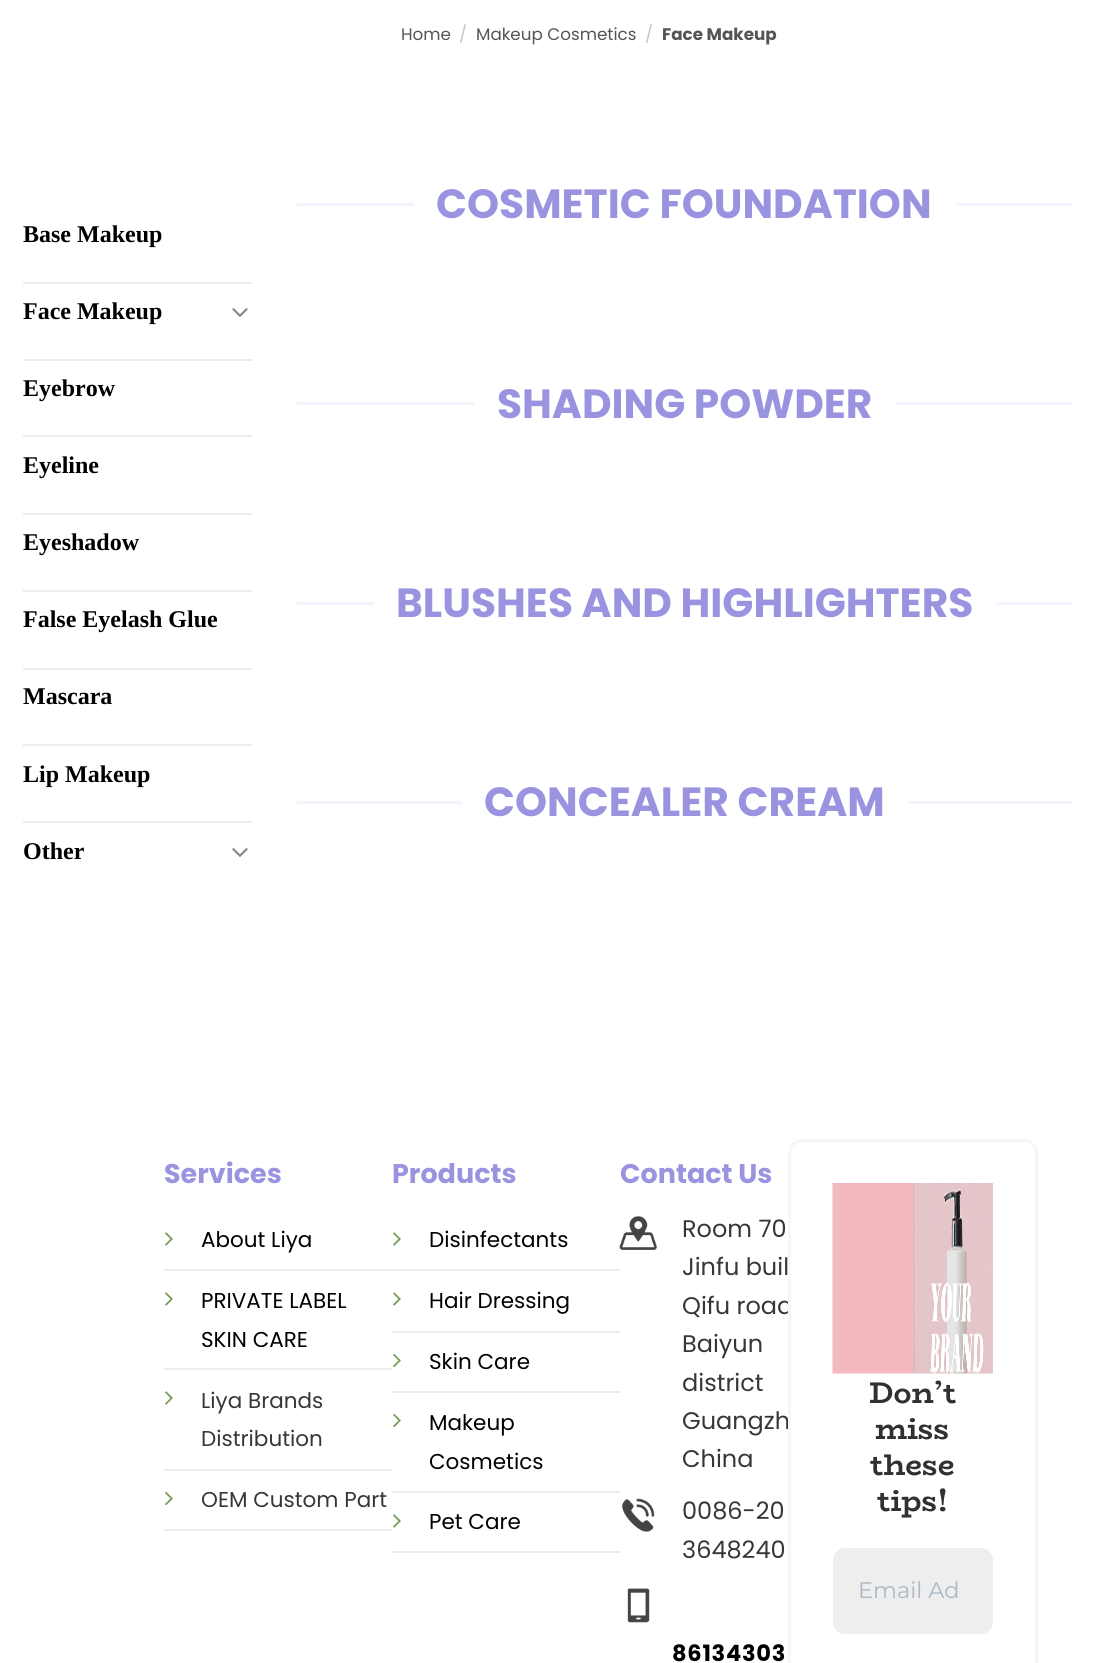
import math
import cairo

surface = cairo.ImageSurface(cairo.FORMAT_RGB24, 1095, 1663)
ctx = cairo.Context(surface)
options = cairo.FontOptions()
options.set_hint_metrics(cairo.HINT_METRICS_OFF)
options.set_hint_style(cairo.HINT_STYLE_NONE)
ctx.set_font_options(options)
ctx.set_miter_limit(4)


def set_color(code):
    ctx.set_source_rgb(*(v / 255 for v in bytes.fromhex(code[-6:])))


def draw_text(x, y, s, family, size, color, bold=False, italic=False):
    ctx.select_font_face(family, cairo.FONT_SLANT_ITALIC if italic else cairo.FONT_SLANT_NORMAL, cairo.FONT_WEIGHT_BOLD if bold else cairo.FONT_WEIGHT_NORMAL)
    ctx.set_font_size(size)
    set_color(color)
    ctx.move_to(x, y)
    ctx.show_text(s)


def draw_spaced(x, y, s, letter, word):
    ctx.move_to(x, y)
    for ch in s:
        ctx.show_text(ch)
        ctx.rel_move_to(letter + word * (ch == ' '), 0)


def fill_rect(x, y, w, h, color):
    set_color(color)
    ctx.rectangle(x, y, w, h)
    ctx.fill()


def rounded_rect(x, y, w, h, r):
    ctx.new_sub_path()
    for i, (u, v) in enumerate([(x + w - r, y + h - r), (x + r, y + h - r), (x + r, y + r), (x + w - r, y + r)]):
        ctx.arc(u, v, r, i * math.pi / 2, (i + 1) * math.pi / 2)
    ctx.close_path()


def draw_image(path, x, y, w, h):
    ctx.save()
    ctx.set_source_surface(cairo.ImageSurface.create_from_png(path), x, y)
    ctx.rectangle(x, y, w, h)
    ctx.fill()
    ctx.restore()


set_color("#ffffff")
ctx.paint()
draw_text(401, 40, "Home", "Poppins", 16.75, "#555555")
draw_text(459, 40, "/", "Poppins", 16.75, "#c4c4c4")
draw_text(476, 40, "Makeup Cosmetics", "Poppins", 16.75, "#555555")
draw_text(645, 40, "/", "Poppins", 16.75, "#c4c4c4")
draw_text(662, 40, "Face Makeup", "Poppins", 16.75, "#555555", bold=True)
draw_text(23, 242, "Base Makeup", "Liberation Serif", 24, "#000000", bold=True)
fill_rect(23, 282, 229, 2, "#ececec")
draw_text(23, 319, "Face Makeup", "Liberation Serif", 24, "#000000", bold=True)
draw_image("assets/img1.png", 232, 308, 16, 9)
fill_rect(23, 359, 229, 2, "#ececec")
draw_text(23, 396, "Eyebrow", "Liberation Serif", 24, "#000000", bold=True)
fill_rect(23, 435, 229, 2, "#ececec")
draw_text(23, 473, "Eyeline", "Liberation Serif", 24, "#000000", bold=True)
fill_rect(23, 513, 229, 2, "#ececec")
draw_text(23, 550, "Eyeshadow", "Liberation Serif", 24, "#000000", bold=True)
fill_rect(23, 590, 229, 2, "#ececec")
draw_text(23, 627, "False Eyelash Glue", "Liberation Serif", 24, "#000000", bold=True)
fill_rect(23, 668, 229, 2, "#ececec")
draw_text(23, 704, "Mascara", "Liberation Serif", 24, "#000000", bold=True)
fill_rect(23, 744, 229, 2, "#ececec")
draw_text(23, 782, "Lip Makeup", "Liberation Serif", 24, "#000000", bold=True)
fill_rect(23, 821, 229, 2, "#ececec")
draw_text(23, 859, "Other", "Liberation Serif", 24, "#000000", bold=True)
draw_image("assets/img1.png", 232, 848, 16, 9)
fill_rect(297, 203, 117, 3, "#f5f4fc")
draw_text(436, 218, "COSMETIC FOUNDATION", "Poppins", 40.75, "#9a94e0", bold=True)
fill_rect(956, 203, 117, 3, "#f5f4fc")
fill_rect(297, 402, 177, 3, "#f5f4fc")
draw_text(497, 418, "SHADING POWDER", "Poppins", 40.75, "#9a94e0", bold=True)
fill_rect(896, 402, 177, 3, "#f5f4fc")
fill_rect(297, 602, 77, 3, "#f5f4fc")
draw_text(396, 617, "BLUSHES AND HIGHLIGHTERS", "Poppins", 40.75, "#9a94e0", bold=True)
fill_rect(996, 602, 77, 3, "#f5f4fc")
fill_rect(297, 801, 165, 3, "#f5f4fc")
draw_text(484, 816, "CONCEALER CREAM", "Poppins", 40.75, "#9a94e0", bold=True)
fill_rect(908, 801, 165, 3, "#f5f4fc")
draw_text(164, 1183, "Services", "Poppins", 27, "#9a94e0", bold=True)
fill_rect(164, 1269, 456, 2, "#ececec")
draw_image("assets/img2.png", 165, 1232, 8, 14)
draw_text(201, 1247, "About Liya", "Poppins", 21.5, "#000000")
fill_rect(164, 1368, 228, 2, "#ececec")
draw_image("assets/img2.png", 165, 1292, 8, 14)
draw_text(201, 1308, "PRIVATE LABEL", "Poppins", 21.5, "#000000")
draw_text(201, 1347, "SKIN CARE", "Poppins", 21.5, "#000000")
fill_rect(164, 1469, 228, 2, "#ececec")
draw_image("assets/img2.png", 165, 1391, 8, 14)
draw_text(201, 1408, "Liya Brands", "Poppins", 21.5, "#383737")
draw_text(201, 1446, "Distribution", "Poppins", 21.5, "#383737")
fill_rect(164, 1529, 228, 2, "#ececec")
draw_image("assets/img3.png", 165, 1491, 8, 15)
draw_text(201, 1507, "OEM Custom Part", "Poppins", 21.5, "#383737")
draw_text(392, 1183, "Products", "Poppins", 27, "#9a94e0", bold=True)
draw_image("assets/img2.png", 393, 1232, 8, 14)
draw_text(429, 1247, "Disinfectants", "Poppins", 21.5, "#000000")
fill_rect(392, 1331, 228, 2, "#ececec")
draw_image("assets/img2.png", 393, 1292, 8, 14)
draw_text(429, 1308, "Hair Dressing", "Poppins", 21.5, "#000000")
fill_rect(392, 1391, 228, 2, "#ececec")
draw_image("assets/img3.png", 393, 1353, 8, 15)
draw_text(429, 1369, "Skin Care", "Poppins", 21.5, "#000000")
fill_rect(392, 1491, 228, 2, "#ececec")
draw_image("assets/img3.png", 393, 1413, 8, 15)
draw_text(429, 1430, "Makeup", "Poppins", 21.5, "#000000")
draw_text(429, 1469, "Cosmetics", "Poppins", 21.5, "#000000")
fill_rect(392, 1551, 228, 2, "#ececec")
draw_image("assets/img2.png", 393, 1514, 8, 14)
draw_text(429, 1529, "Pet Care", "Poppins", 21.5, "#000000")
draw_text(620, 1183, "Contact Us", "Poppins", 27, "#9a94e0", bold=True)
draw_image("assets/img4.png", 619, 1216, 38, 34)
draw_text(682, 1237, "Room 70", "Poppins", 24, "#383737")
draw_text(682, 1275, "Jinfu buil", "Poppins", 24, "#383737")
draw_text(682, 1314, "Qifu road", "Poppins", 24, "#383737")
draw_text(682, 1352, "Baiyun", "Poppins", 24, "#383737")
draw_text(682, 1391, "district", "Poppins", 24, "#383737")
draw_text(682, 1429, "Guangzh", "Poppins", 24, "#383737")
draw_text(682, 1467, "China", "Poppins", 24, "#383737")
draw_image("assets/img5.png", 622, 1498, 33, 34)
draw_text(682, 1519, "0086-20", "Poppins", 24, "#383737")
draw_text(682, 1558, "3648240", "Poppins", 24, "#383737")
draw_image("assets/img6.png", 627, 1588, 23, 35)
ctx.select_font_face("Poppins", cairo.FONT_SLANT_NORMAL, cairo.FONT_WEIGHT_BOLD)
ctx.set_font_size(22.5)
set_color("#000000")
draw_spaced(672, 1661, "86134303", 0.75, 0)
set_color("#ffffff")
rounded_rect(789.5, 1140.5, 247, 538, 12.5)
ctx.fill_preserve()
set_color("#f7f7f7")
ctx.set_line_width(3)
ctx.stroke()
draw_image("assets/img7.png", 832, 1183, 161, 191)
draw_text(869, 1403, "Don’t", "BioRhyme", 30, "#313131", bold=True)
draw_text(875, 1439, "miss", "BioRhyme", 30, "#313131", bold=True)
draw_text(870, 1475, "these", "BioRhyme", 30, "#313131", bold=True)
draw_text(877, 1511, "tips!", "BioRhyme", 30, "#313131", bold=True)
set_color("#eeeeee")
rounded_rect(833, 1548, 160, 86, 12)
ctx.fill()
draw_text(858, 1598, "Email Ad", "Montserrat", 22.5, "#abb8c3")
surface.write_to_png("output.png")
